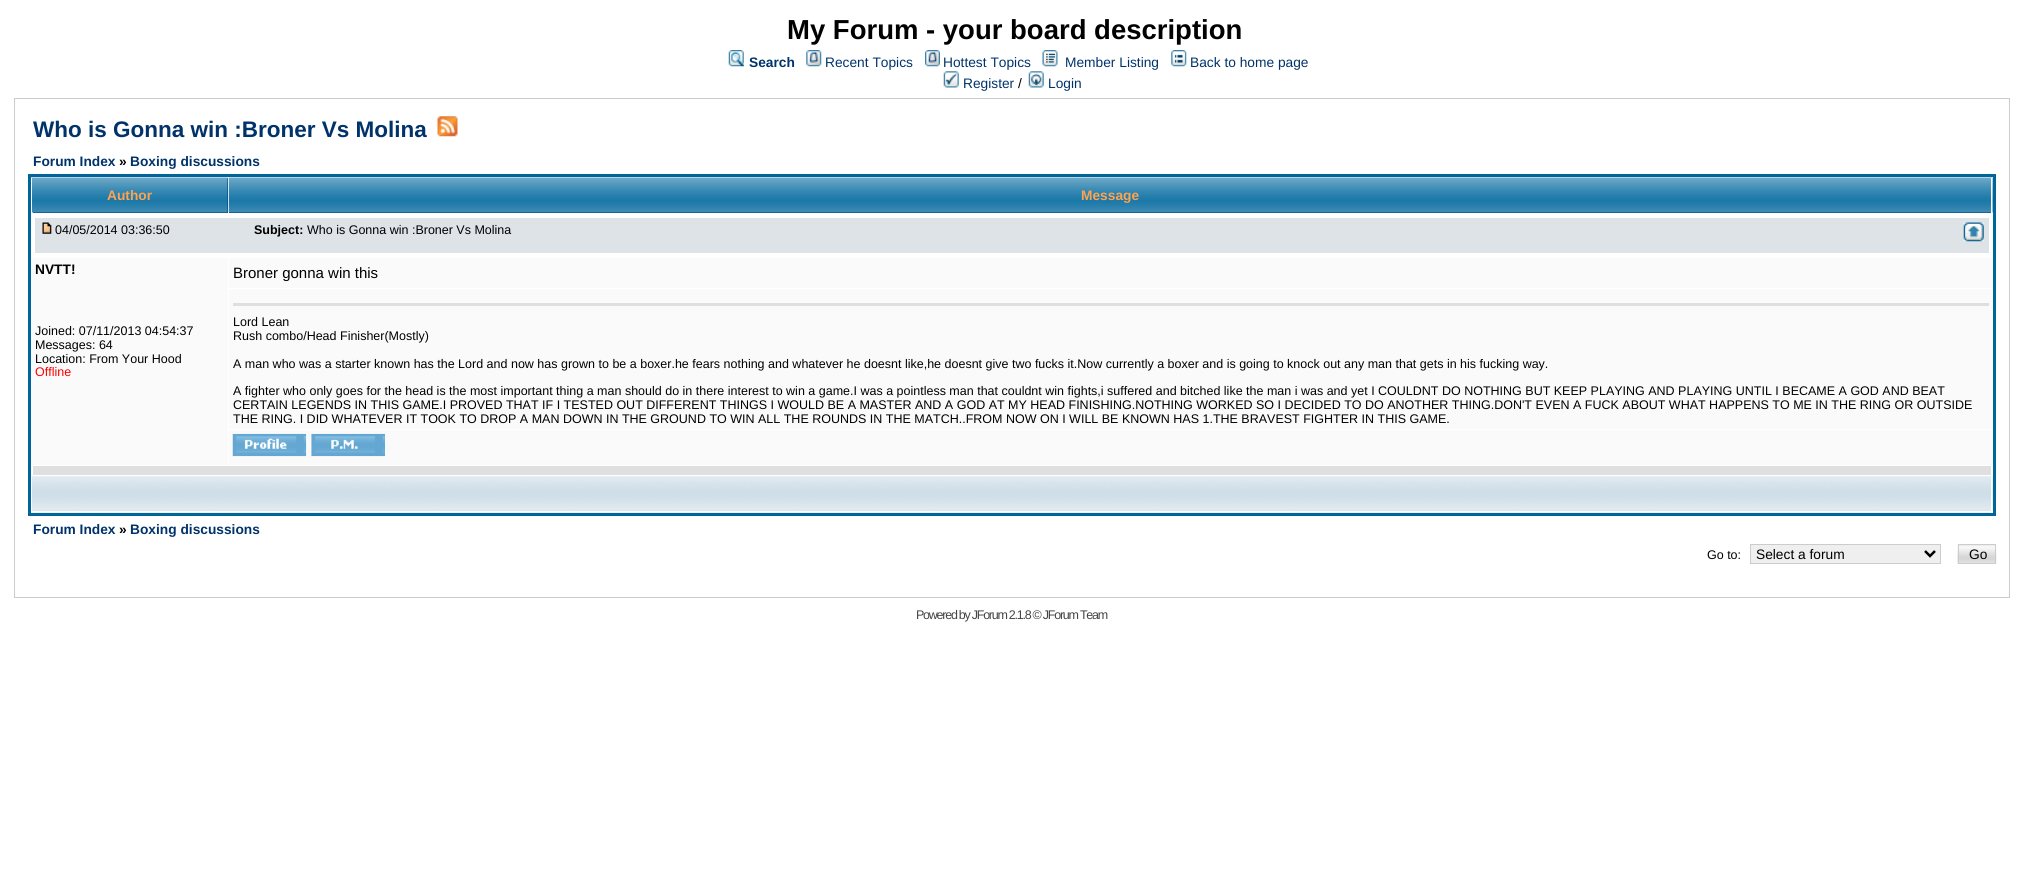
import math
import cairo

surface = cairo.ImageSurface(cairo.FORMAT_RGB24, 2023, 890)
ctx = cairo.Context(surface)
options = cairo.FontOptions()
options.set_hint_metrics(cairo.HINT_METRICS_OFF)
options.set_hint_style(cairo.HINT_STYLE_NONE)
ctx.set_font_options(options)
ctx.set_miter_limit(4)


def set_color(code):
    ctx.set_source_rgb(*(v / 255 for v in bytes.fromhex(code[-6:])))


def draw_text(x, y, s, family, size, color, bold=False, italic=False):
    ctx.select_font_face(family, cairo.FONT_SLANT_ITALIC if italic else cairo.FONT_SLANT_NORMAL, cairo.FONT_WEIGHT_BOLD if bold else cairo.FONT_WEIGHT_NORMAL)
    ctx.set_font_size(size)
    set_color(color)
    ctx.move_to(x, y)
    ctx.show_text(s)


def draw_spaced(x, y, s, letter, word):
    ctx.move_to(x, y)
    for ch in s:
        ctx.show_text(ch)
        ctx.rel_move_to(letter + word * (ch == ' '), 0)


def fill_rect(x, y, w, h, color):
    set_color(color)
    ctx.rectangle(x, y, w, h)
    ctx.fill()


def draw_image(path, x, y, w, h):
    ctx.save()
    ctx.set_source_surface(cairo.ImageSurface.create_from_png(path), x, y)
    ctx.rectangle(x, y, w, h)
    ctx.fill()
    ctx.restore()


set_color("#ffffff")
ctx.paint()
draw_text(787, 39, "My Forum - your board description", "Liberation Sans", 27.5, "#000000", bold=True)
draw_image("assets/img1.png", 728, 50, 16, 17)
draw_text(749, 67, "Search", "Liberation Sans", 13.75, "#01336b", bold=True)
draw_image("assets/img2.png", 806, 50, 16, 17)
draw_text(825, 67, "Recent Topics", "Liberation Sans", 13.75, "#01336b")
draw_image("assets/img3.png", 925, 50, 15, 17)
draw_text(943, 67, "Hottest Topics", "Liberation Sans", 13.75, "#01336b")
draw_image("assets/img4.png", 1042, 50, 16, 17)
draw_text(1065, 67, "Member Listing", "Liberation Sans", 13.75, "#01336b")
draw_image("assets/img5.png", 1171, 50, 16, 17)
draw_text(1190, 67, "Back to home page", "Liberation Sans", 13.75, "#01336b")
draw_image("assets/img6.png", 943, 71, 16, 17)
draw_text(963, 88, "Register", "Liberation Sans", 13.75, "#01336b")
draw_text(1018, 88, "/", "Liberation Sans", 13.75, "#000000")
draw_image("assets/img7.png", 1028, 71, 16, 17)
draw_text(1048, 88, "Login", "Liberation Sans", 13.75, "#01336b")
ctx.rectangle(14.5, 98.5, 1995, 499)
set_color("#cccccc")
ctx.set_line_width(1)
ctx.stroke()
draw_text(33, 137, "Who is Gonna win :Broner Vs Molina", "Liberation Sans", 22.5, "#01336b", bold=True)
draw_image("assets/img8.png", 437, 116, 21, 21)
draw_text(33, 166, "Forum Index", "Liberation Sans", 13.75, "#01336b", bold=True)
draw_text(119, 166, "»", "Liberation Sans", 13.75, "#000000", bold=True)
draw_text(130, 166, "Boxing discussions", "Liberation Sans", 13.75, "#01336b", bold=True)
ctx.rectangle(29.5, 175.5, 1965, 339)
set_color("#006699")
ctx.set_line_width(3)
ctx.stroke()
fill_rect(33, 178, 195, 35, "#01336b")
draw_image("assets/img9.png", 31, 177, 197, 36)
fill_rect(31, 178, 1, 35, "#ffffff")
draw_text(107, 200, "Author", "Liberation Sans", 13.75, "#ffa34f", bold=True)
fill_rect(229, 212, 1762, 1, "#01336b")
draw_image("assets/img10.png", 228, 177, 1765, 36)
fill_rect(1991, 178, 1, 35, "#ffffff")
draw_text(1081, 200, "Message", "Liberation Sans", 13.75, "#ffa34f", bold=True)
fill_rect(35, 218, 1954, 35, "#dee3e7")
draw_image("assets/img11.png", 42, 222, 10, 12)
draw_text(55, 234, "04/05/2014 03:36:50", "Liberation Sans", 12.5, "#000000")
draw_text(254, 234, "Subject:", "Liberation Sans", 12.5, "#000000", bold=True)
draw_text(307, 234, "Who is Gonna win :Broner Vs Molina", "Liberation Sans", 12.5, "#000000")
draw_image("assets/img12.png", 1963, 222, 21, 20)
fill_rect(31, 258, 197, 207, "#fafafa")
draw_text(35, 274, "NVTT!", "Liberation Sans", 13.75, "#000000", bold=True)
draw_text(35, 335, "Joined: 07/11/2013 04:54:37", "Liberation Sans", 12.5, "#000000")
draw_text(35, 349, "Messages: 64", "Liberation Sans", 12.5, "#000000")
draw_text(35, 363, "Location: From Your Hood", "Liberation Sans", 12.5, "#000000")
draw_text(35, 376, "Offline", "Liberation Sans", 12.5, "#ff0000")
fill_rect(229, 258, 1764, 30, "#fafafa")
draw_text(233, 278, "Broner gonna win this", "Liberation Sans", 15, "#000000")
fill_rect(229, 289, 1764, 140, "#fafafa")
fill_rect(233, 303, 1756, 3, "#dfdfdf")
draw_text(233, 326, "Lord Lean", "Liberation Sans", 12.5, "#000000")
draw_text(233, 340, "Rush combo/Head Finisher(Mostly)", "Liberation Sans", 12.5, "#000000")
draw_text(233, 368, "A man who was a starter known has the Lord and now has grown to be a boxer.he fears nothing and whatever he doesnt like,he doesnt give two fucks it.Now currently a boxer and is going to knock out any man that gets in his fucking way.", "Liberation Sans", 12.5, "#000000")
draw_text(233, 395, "A fighter who only goes for the head is the most important thing a man should do in there interest to win a game.I was a pointless man that couldnt win fights,i suffered and bitched like the man i was and yet I COULDNT DO NOTHING BUT KEEP PLAYING AND PLAYING UNTIL I BECAME A GOD AND BEAT", "Liberation Sans", 12.5, "#000000")
draw_text(233, 409, "CERTAIN LEGENDS IN THIS GAME.I PROVED THAT IF I TESTED OUT DIFFERENT THINGS I WOULD BE A MASTER AND A GOD AT MY HEAD FINISHING.NOTHING WORKED SO I DECIDED TO DO ANOTHER THING.DON'T EVEN A FUCK ABOUT WHAT HAPPENS TO ME IN THE RING OR OUTSIDE", "Liberation Sans", 12.5, "#000000")
draw_text(233, 423, "THE RING. I DID WHATEVER IT TOOK TO DROP A MAN DOWN IN THE GROUND TO WIN ALL THE ROUNDS IN THE MATCH..FROM NOW ON I WILL BE KNOWN HAS 1.THE BRAVEST FIGHTER IN THIS GAME.", "Liberation Sans", 12.5, "#000000")
fill_rect(229, 430, 1764, 35, "#fafafa")
draw_image("assets/img13.png", 232, 433, 75, 24)
draw_image("assets/img14.png", 311, 433, 74, 24)
fill_rect(33, 466, 1958, 9, "#dfdfdf")
draw_image("assets/img15.png", 32, 476, 1961, 37)
fill_rect(1991, 476, 1, 37, "#ffffff")
fill_rect(31, 511, 1962, 1, "#ffffff")
draw_text(33, 534, "Forum Index", "Liberation Sans", 13.75, "#01336b", bold=True)
draw_text(119, 534, "»", "Liberation Sans", 13.75, "#000000", bold=True)
draw_text(130, 534, "Boxing discussions", "Liberation Sans", 13.75, "#01336b", bold=True)
draw_text(1707, 559, "Go to:", "Liberation Sans", 12.5, "#000000")
set_color("#efefef")
ctx.rectangle(1750.5, 544.5, 190, 19)
ctx.fill_preserve()
set_color("#cccccc")
ctx.set_line_width(1)
ctx.stroke()
ctx.new_path()
ctx.move_to(1925, 551)
ctx.line_to(1930, 556)
ctx.line_to(1935, 551)
set_color("#000000")
ctx.set_line_width(2.5)
ctx.stroke()
draw_text(1756, 559, "Select a forum", "Liberation Sans", 13.75, "#000000")
draw_image("assets/img16.png", 1957, 545, 40, 19)
ctx.rectangle(1958.5, 544.5, 37, 19)
set_color("#cccccc")
ctx.set_line_width(1)
ctx.stroke()
draw_text(1969, 559, "Go", "Liberation Sans", 13.75, "#000000")
ctx.set_font_size(12.5)
set_color("#444444")
draw_spaced(916, 619, "Powered by JForum 2.1.8 © JForum Team", -1.25, 0)
surface.write_to_png("output.png")
